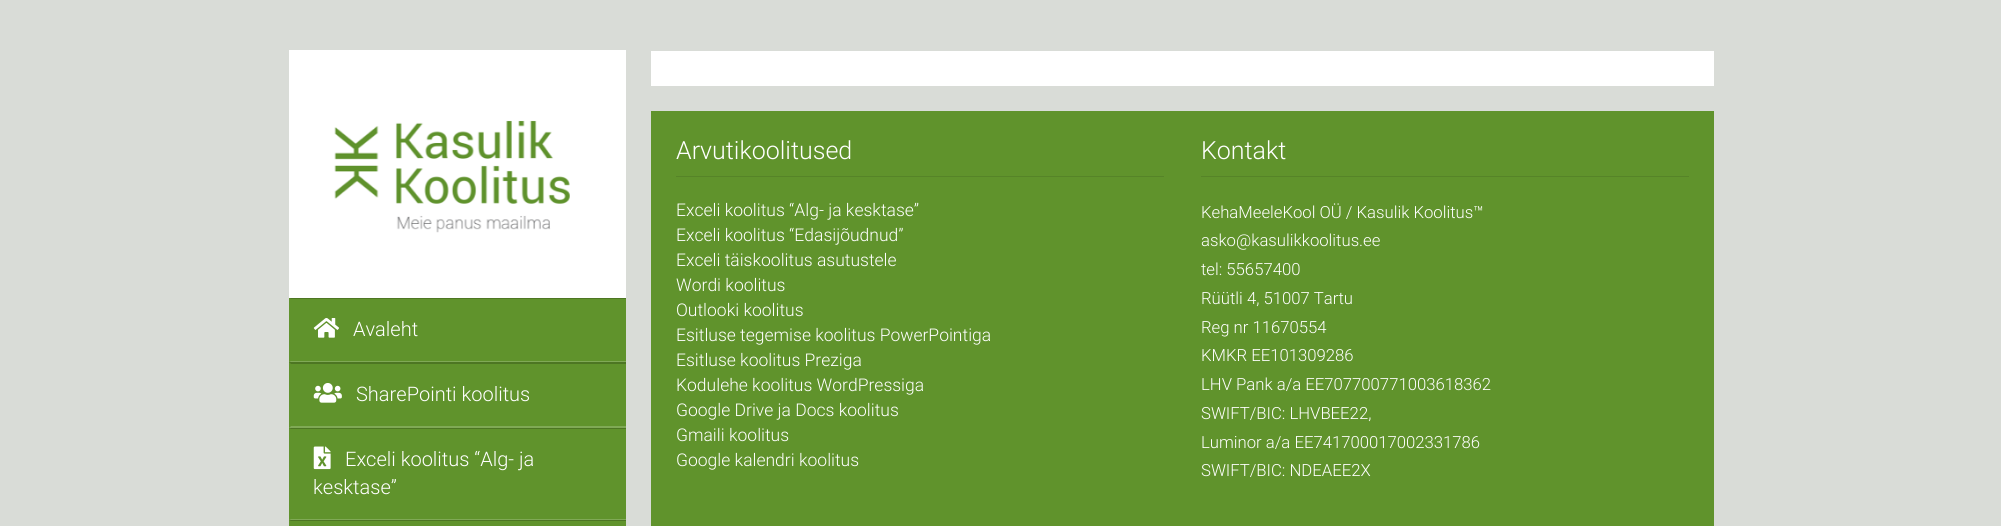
import math
import cairo

surface = cairo.ImageSurface(cairo.FORMAT_RGB24, 2001, 526)
ctx = cairo.Context(surface)
options = cairo.FontOptions()
options.set_hint_metrics(cairo.HINT_METRICS_OFF)
options.set_hint_style(cairo.HINT_STYLE_NONE)
ctx.set_font_options(options)
ctx.set_miter_limit(4)


def set_color(code):
    ctx.set_source_rgb(*(v / 255 for v in bytes.fromhex(code[-6:])))


def draw_text(x, y, s, family, size, color, bold=False, italic=False):
    ctx.select_font_face(family, cairo.FONT_SLANT_ITALIC if italic else cairo.FONT_SLANT_NORMAL, cairo.FONT_WEIGHT_BOLD if bold else cairo.FONT_WEIGHT_NORMAL)
    ctx.set_font_size(size)
    set_color(color)
    ctx.move_to(x, y)
    ctx.show_text(s)


def fill_rect(x, y, w, h, color):
    set_color(color)
    ctx.rectangle(x, y, w, h)
    ctx.fill()


def draw_image(path, x, y, w, h):
    ctx.save()
    ctx.set_source_surface(cairo.ImageSurface.create_from_png(path), x, y)
    ctx.rectangle(x, y, w, h)
    ctx.fill()
    ctx.restore()


set_color("#d9dcd7")
ctx.paint()
fill_rect(289, 50, 337, 248, "#ffffff")
draw_image("assets/img1.png", 334, 120, 236, 113)
fill_rect(289, 298, 337, 228, "#60932c")
set_color("#4d7623")
ctx.new_path()
ctx.move_to(289, 298)
ctx.line_to(626, 298)
ctx.line_to(626, 299)
ctx.line_to(291, 299)
ctx.close_path()
ctx.fill()
set_color("#80a956")
ctx.new_path()
ctx.move_to(626, 362)
ctx.line_to(289, 362)
ctx.line_to(291, 361)
ctx.line_to(626, 361)
ctx.close_path()
ctx.fill()
draw_image("assets/img2.png", 313, 318, 26, 20)
draw_text(353, 336, "Avaleht", "Roboto Light", 20, "#ffffff")
set_color("#4d7623")
ctx.new_path()
ctx.move_to(289, 362)
ctx.line_to(626, 362)
ctx.line_to(626, 364)
ctx.line_to(291, 364)
ctx.close_path()
ctx.fill()
set_color("#80a956")
ctx.new_path()
ctx.move_to(626, 428)
ctx.line_to(289, 428)
ctx.line_to(291, 426)
ctx.line_to(626, 426)
ctx.close_path()
ctx.fill()
draw_image("assets/img3.png", 313, 383, 29, 20)
draw_text(356, 401, "SharePointi koolitus", "Roboto Light", 20, "#ffffff")
set_color("#4d7623")
ctx.new_path()
ctx.move_to(289, 428)
ctx.line_to(626, 428)
ctx.line_to(626, 429)
ctx.line_to(291, 429)
ctx.close_path()
ctx.fill()
set_color("#80a956")
ctx.new_path()
ctx.move_to(626, 520)
ctx.line_to(289, 520)
ctx.line_to(291, 519)
ctx.line_to(626, 519)
ctx.close_path()
ctx.fill()
draw_image("assets/img4.png", 313, 446, 18, 24)
draw_text(345, 466, "Exceli koolitus “Alg- ja", "Roboto Light", 20, "#ffffff")
draw_text(313, 494, "kesktase”", "Roboto Light", 20, "#ffffff")
set_color("#4d7623")
ctx.new_path()
ctx.move_to(289, 520)
ctx.line_to(626, 520)
ctx.line_to(626, 521)
ctx.line_to(291, 521)
ctx.close_path()
ctx.fill()
fill_rect(651, 51, 1063, 35, "#ffffff")
fill_rect(651, 111, 1063, 415, "#60932c")
fill_rect(676, 176, 488, 1, "#568428")
draw_text(676, 159, "Arvutikoolitused", "Roboto Light", 25, "#ffffff")
draw_text(676, 216, "Exceli koolitus “Alg- ja kesktase”", "Roboto Light", 17.5, "#ffffff")
draw_text(676, 241, "Exceli koolitus “Edasijõudnud”", "Roboto Light", 17.5, "#ffffff")
draw_text(676, 266, "Exceli täiskoolitus asutustele", "Roboto Light", 17.5, "#ffffff")
draw_text(676, 291, "Wordi koolitus", "Roboto Light", 17.5, "#ffffff")
draw_text(676, 316, "Outlooki koolitus", "Roboto Light", 17.5, "#ffffff")
draw_text(676, 341, "Esitluse tegemise koolitus PowerPointiga", "Roboto Light", 17.5, "#ffffff")
draw_text(676, 366, "Esitluse koolitus Preziga", "Roboto Light", 17.5, "#ffffff")
draw_text(676, 391, "Kodulehe koolitus WordPressiga", "Roboto Light", 17.5, "#ffffff")
draw_text(676, 416, "Google Drive ja Docs koolitus", "Roboto Light", 17.5, "#ffffff")
draw_text(676, 441, "Gmaili koolitus", "Roboto Light", 17.5, "#ffffff")
draw_text(676, 466, "Google kalendri koolitus", "Roboto Light", 17.5, "#ffffff")
fill_rect(1201, 176, 488, 1, "#568428")
draw_text(1201, 159, "Kontakt", "Roboto Light", 25, "#ffffff")
draw_text(1201, 218, "KehaMeeleKool OÜ / Kasulik Koolitus™", "Roboto Light", 16.7, "#ffffff")
draw_text(1201, 246, "asko@kasulikkoolitus.ee", "Roboto Light", 16.7, "#ffffff")
draw_text(1201, 275, "tel: 55657400", "Roboto Light", 16.7, "#ffffff")
draw_text(1201, 304, "Rüütli 4, 51007 Tartu", "Roboto Light", 16.7, "#ffffff")
draw_text(1201, 333, "Reg nr 11670554", "Roboto Light", 16.7, "#ffffff")
draw_text(1201, 361, "KMKR EE101309286", "Roboto Light", 16.7, "#ffffff")
draw_text(1201, 390, "LHV Pank a/a EE707700771003618362", "Roboto Light", 16.7, "#ffffff")
draw_text(1201, 419, "SWIFT/BIC: LHVBEE22,", "Roboto Light", 16.7, "#ffffff")
draw_text(1201, 448, "Luminor a/a EE741700017002331786", "Roboto Light", 16.7, "#ffffff")
draw_text(1201, 476, "SWIFT/BIC: NDEAEE2X", "Roboto Light", 16.7, "#ffffff")
surface.write_to_png("output.png")
